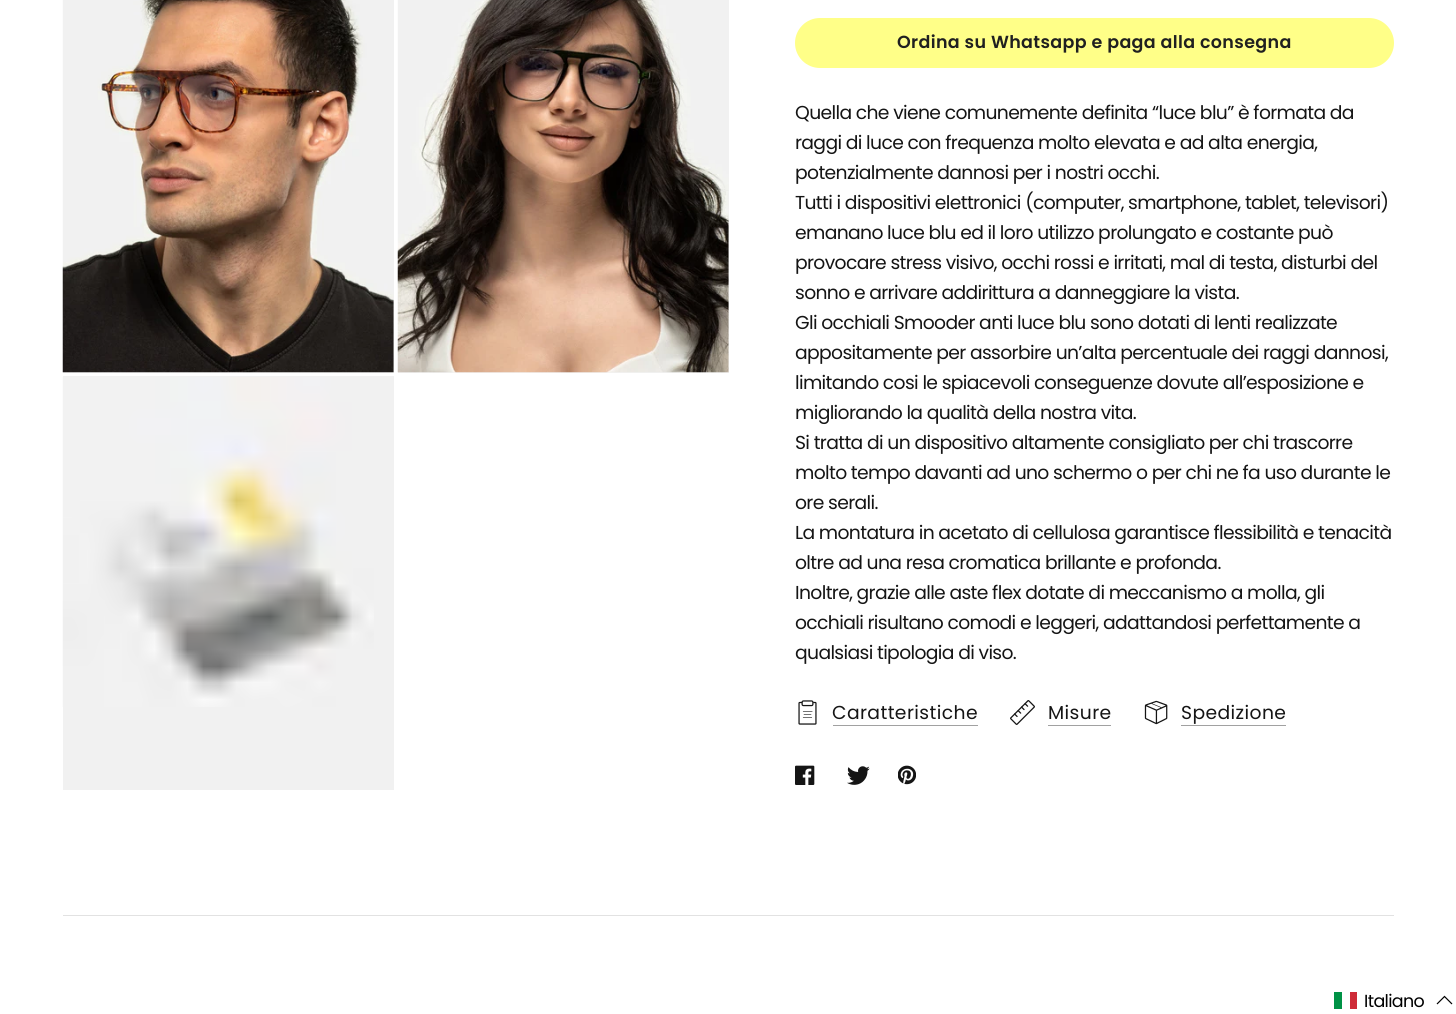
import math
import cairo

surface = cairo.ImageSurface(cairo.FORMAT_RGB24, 1456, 1014)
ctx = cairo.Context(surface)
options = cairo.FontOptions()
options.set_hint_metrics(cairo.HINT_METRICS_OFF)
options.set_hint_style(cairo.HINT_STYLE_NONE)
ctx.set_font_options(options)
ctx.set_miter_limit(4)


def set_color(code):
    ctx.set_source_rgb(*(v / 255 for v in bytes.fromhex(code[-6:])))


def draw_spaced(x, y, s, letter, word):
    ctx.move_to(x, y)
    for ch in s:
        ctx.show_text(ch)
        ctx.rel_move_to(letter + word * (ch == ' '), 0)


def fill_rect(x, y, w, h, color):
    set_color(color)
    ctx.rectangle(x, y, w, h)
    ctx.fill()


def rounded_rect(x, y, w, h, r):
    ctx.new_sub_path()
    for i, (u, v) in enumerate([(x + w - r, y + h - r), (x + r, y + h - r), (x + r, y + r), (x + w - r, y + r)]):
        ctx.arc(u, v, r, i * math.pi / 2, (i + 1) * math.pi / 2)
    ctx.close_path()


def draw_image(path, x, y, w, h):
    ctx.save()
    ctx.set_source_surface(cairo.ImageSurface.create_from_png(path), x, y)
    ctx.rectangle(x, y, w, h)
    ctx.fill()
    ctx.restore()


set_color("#ffffff")
ctx.paint()
fill_rect(63, 0, 331, 373, "#f1f1f1")
draw_image("assets/img1.png", 62, 0, 332, 373)
fill_rect(398, 0, 331, 373, "#f1f1f1")
draw_image("assets/img2.png", 397, 0, 332, 373)
fill_rect(63, 376, 331, 414, "#f1f1f1")
draw_image("assets/img3.png", 62, 377, 312, 330)
set_color("#ffff88")
rounded_rect(795, 18, 599, 50, 25)
ctx.fill()
ctx.select_font_face("Poppins SemiBold")
ctx.set_font_size(17.5)
set_color("#202020")
draw_spaced(897, 48, "Ordina su Whatsapp e paga alla consegna", 0.35, 0)
ctx.select_font_face("Poppins")
ctx.set_font_size(18.75)
set_color("#151515")
draw_spaced(795, 119, "Quella che viene comunemente definita “luce blu” è formata da", -0.65, 0)
draw_spaced(795, 149, "raggi di luce con frequenza molto elevata e ad alta energia,", -0.65, 0)
draw_spaced(795, 179, "potenzialmente dannosi per i nostri occhi.", -0.65, 0)
draw_spaced(795, 209, "Tutti i dispositivi elettronici (computer, smartphone, tablet, televisori)", -0.65, 0)
draw_spaced(795, 239, "emanano luce blu ed il loro utilizzo prolungato e costante può", -0.65, 0)
draw_spaced(795, 269, "provocare stress visivo, occhi rossi e irritati, mal di testa, disturbi del", -0.65, 0)
draw_spaced(795, 299, "sonno e arrivare addirittura a danneggiare la vista.", -0.65, 0)
draw_spaced(795, 329, "Gli occhiali Smooder anti luce blu sono dotati di lenti realizzate", -0.65, 0)
draw_spaced(795, 359, "appositamente per assorbire un’alta percentuale dei raggi dannosi,", -0.65, 0)
draw_spaced(795, 389, "limitando cosi le spiacevoli conseguenze dovute all’esposizione e", -0.65, 0)
draw_spaced(795, 419, "migliorando la qualità della nostra vita.", -0.65, 0)
draw_spaced(795, 449, "Si tratta di un dispositivo altamente consigliato per chi trascorre", -0.65, 0)
draw_spaced(795, 479, "molto tempo davanti ad uno schermo o per chi ne fa uso durante le", -0.65, 0)
draw_spaced(795, 509, "ore serali.", -0.65, 0)
draw_spaced(795, 539, "La montatura in acetato di cellulosa garantisce flessibilità e tenacità", -0.65, 0)
draw_spaced(795, 569, "oltre ad una resa cromatica brillante e profonda.", -0.65, 0)
draw_spaced(795, 599, "Inoltre, grazie alle aste flex dotate di meccanismo a molla, gli", -0.65, 0)
draw_spaced(795, 629, "occhiali risultano comodi e leggeri, adattandosi perfettamente a", -0.65, 0)
draw_spaced(795, 659, "qualsiasi tipologia di viso.", -0.65, 0)
draw_image("assets/img4.png", 798, 700, 19, 25)
draw_spaced(832, 719, "Caratteristiche", 0.4, 0)
fill_rect(833, 725, 145, 1, "#a1a1a1")
draw_image("assets/img5.png", 1010, 700, 25, 25)
set_color("#151515")
draw_spaced(1048, 719, "Misure", 0.4, 0)
fill_rect(1048, 725, 63, 1, "#a1a1a1")
draw_image("assets/img6.png", 1144, 700, 24, 25)
set_color("#151515")
draw_spaced(1181, 719, "Spedizione", 0.4, 0)
fill_rect(1181, 725, 105, 1, "#a1a1a1")
draw_image("assets/img7.png", 795, 765, 20, 20)
draw_image("assets/img8.png", 847, 766, 23, 19)
draw_image("assets/img9.png", 898, 765, 18, 20)
fill_rect(63, 915, 1331, 1, "#e2e2e2")
fill_rect(1334, 992, 8, 17, "#009246")
fill_rect(1350, 992, 7, 17, "#ce2b37")
ctx.set_font_size(17.5)
set_color("#000000")
draw_spaced(1364, 1007, "Italiano", -0.65, 0)
ctx.new_path()
ctx.move_to(1452, 1004)
ctx.line_to(1444.5, 996.5)
ctx.line_to(1437, 1004)
ctx.set_line_width(1.2)
ctx.stroke()
surface.write_to_png("output.png")
